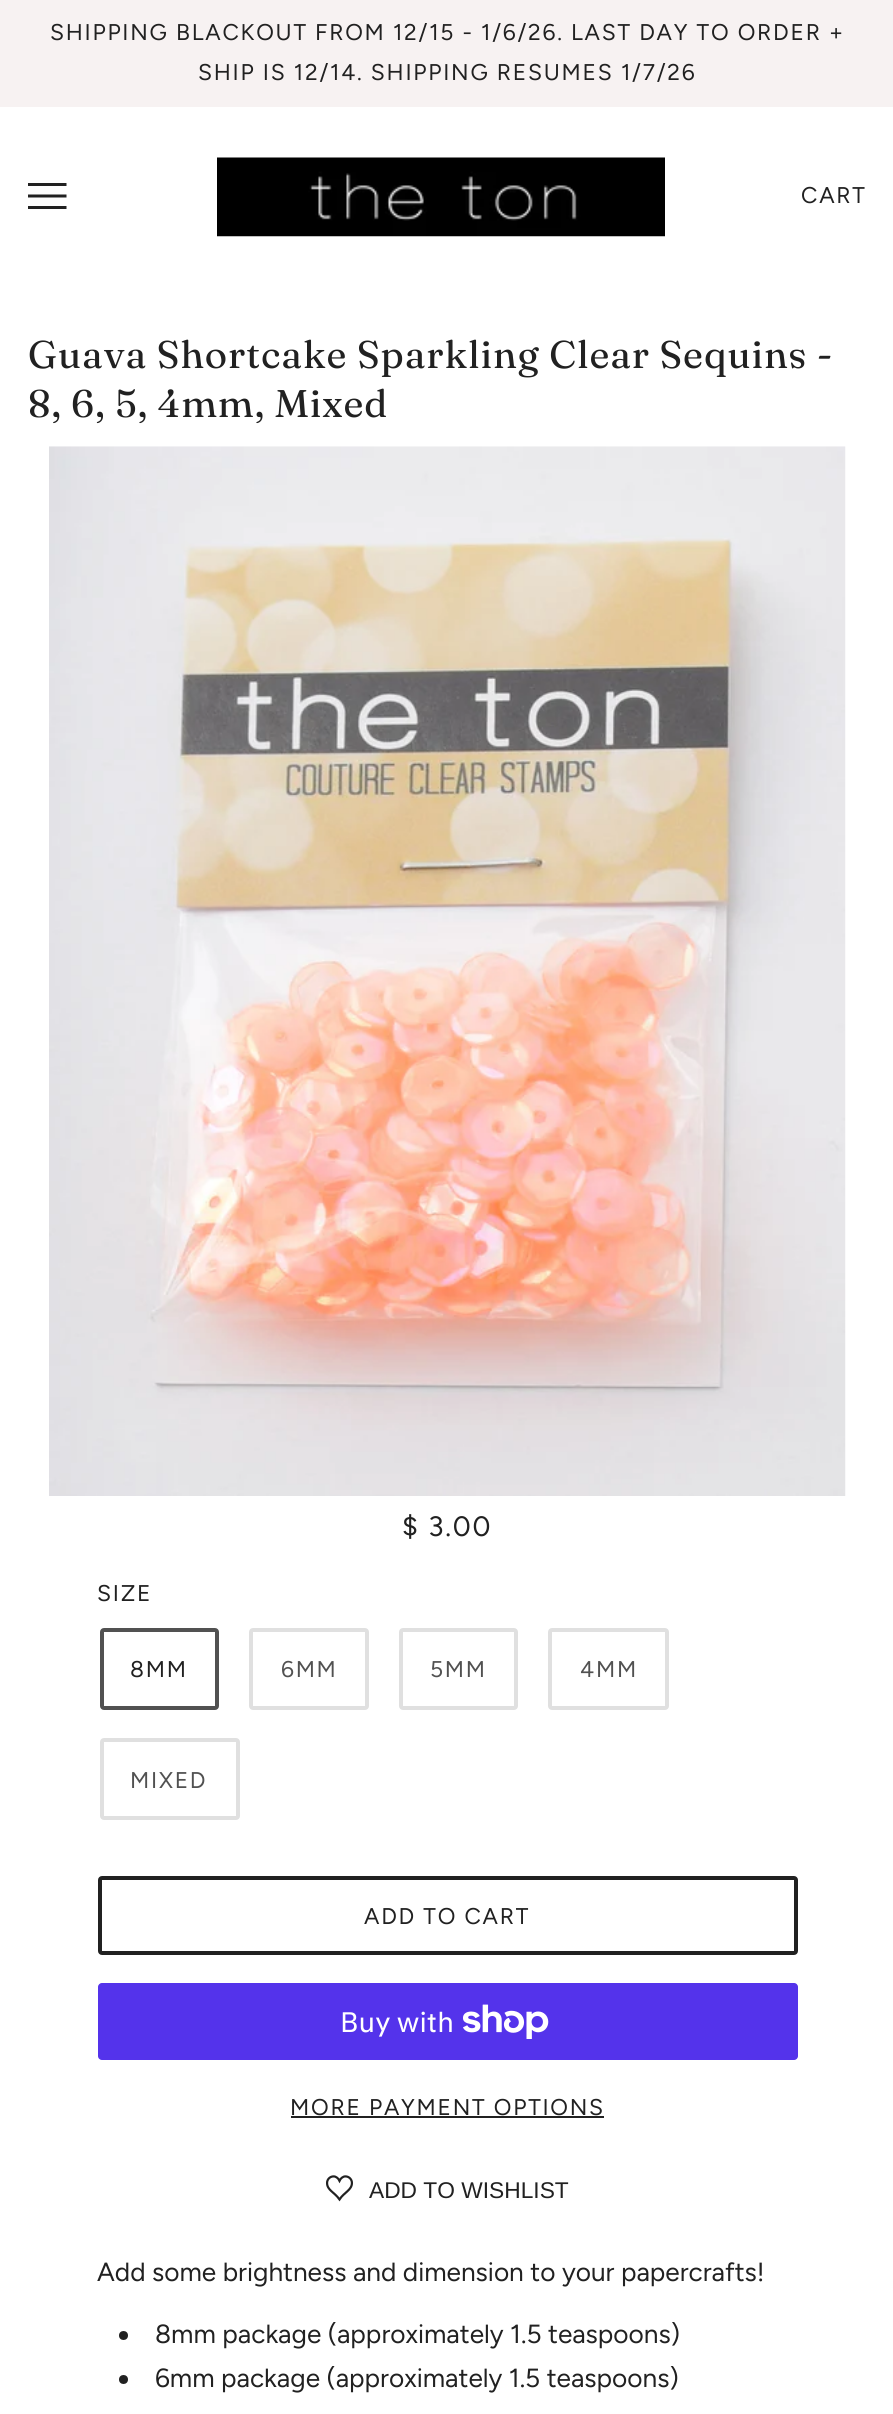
import math
import cairo

surface = cairo.ImageSurface(cairo.FORMAT_RGB24, 893, 2414)
ctx = cairo.Context(surface)
options = cairo.FontOptions()
options.set_hint_metrics(cairo.HINT_METRICS_OFF)
options.set_hint_style(cairo.HINT_STYLE_NONE)
ctx.set_font_options(options)
ctx.set_miter_limit(4)


def set_color(code):
    ctx.set_source_rgb(*(v / 255 for v in bytes.fromhex(code[-6:])))


def draw_text(x, y, s, family, size, color, bold=False, italic=False):
    ctx.select_font_face(family, cairo.FONT_SLANT_ITALIC if italic else cairo.FONT_SLANT_NORMAL, cairo.FONT_WEIGHT_BOLD if bold else cairo.FONT_WEIGHT_NORMAL)
    ctx.set_font_size(size)
    set_color(color)
    ctx.move_to(x, y)
    ctx.show_text(s)


def draw_spaced(x, y, s, letter, word):
    ctx.move_to(x, y)
    for ch in s:
        ctx.show_text(ch)
        ctx.rel_move_to(letter + word * (ch == ' '), 0)


def fill_rect(x, y, w, h, color):
    set_color(color)
    ctx.rectangle(x, y, w, h)
    ctx.fill()


def rounded_rect(x, y, w, h, r):
    ctx.new_sub_path()
    for i, (u, v) in enumerate([(x + w - r, y + h - r), (x + r, y + h - r), (x + r, y + r), (x + w - r, y + r)]):
        ctx.arc(u, v, r, i * math.pi / 2, (i + 1) * math.pi / 2)
    ctx.close_path()


def draw_image(path, x, y, w, h):
    ctx.save()
    ctx.set_source_surface(cairo.ImageSurface.create_from_png(path), x, y)
    ctx.rectangle(x, y, w, h)
    ctx.fill()
    ctx.restore()


set_color("#ffffff")
ctx.paint()
fill_rect(0, 0, 893, 107, "#f7f2f2")
ctx.select_font_face("Figtree")
ctx.set_font_size(22.75)
set_color("#212121")
draw_spaced(50, 40, "SHIPPING BLACKOUT FROM 12/15 - 1/6/26. LAST DAY TO ORDER +", 1.75, 0)
draw_spaced(198, 80, "SHIP IS 12/14. SHIPPING RESUMES 1/7/26", 1.75, 0)
ctx.new_path()
ctx.move_to(28, 186)
ctx.line_to(28, 183)
ctx.line_to(66.5, 183)
ctx.line_to(66.5, 186)
ctx.close_path()
ctx.move_to(28, 197.5)
ctx.line_to(28, 194.5)
ctx.line_to(66.5, 194.5)
ctx.line_to(66.5, 197.5)
ctx.close_path()
ctx.move_to(28, 209)
ctx.line_to(28, 206)
ctx.line_to(66.5, 206)
ctx.line_to(66.5, 209)
ctx.close_path()
ctx.fill()
draw_image("assets/img1.png", 217, 157, 448, 80)
draw_spaced(801, 203, "CART", 1.75, 0)
ctx.select_font_face("Fraunces")
ctx.set_font_size(38.5)
draw_spaced(28, 368, "Guava Shortcake Sparkling Clear Sequins -", 0.95, 0)
draw_spaced(28, 417, "8, 6, 5, 4mm, Mixed", 0.95, 0)
draw_image("assets/img2.png", 49, 446, 797, 1050)
ctx.select_font_face("Figtree")
ctx.set_font_size(28)
draw_spaced(402, 1536, "$ 3.00", 1.75, 0)
ctx.set_font_size(22.75)
draw_spaced(97, 1601, "SIZE", 1.75, 0)
rounded_rect(102, 1630, 115, 78, 2)
set_color("#515151")
ctx.set_line_width(4)
ctx.stroke()
set_color("#212121")
draw_spaced(130, 1677, "8MM", 1.75, 0)
rounded_rect(251, 1630, 116, 78, 2)
set_color("#e0e0e0")
ctx.stroke()
set_color("#515151")
draw_spaced(281, 1677, "6MM", 1.75, 0)
rounded_rect(401, 1630, 115, 78, 2)
set_color("#e0e0e0")
ctx.stroke()
set_color("#515151")
draw_spaced(430, 1677, "5MM", 1.75, 0)
rounded_rect(550, 1630, 117, 78, 2)
set_color("#e0e0e0")
ctx.stroke()
set_color("#515151")
draw_spaced(580, 1677, "4MM", 1.75, 0)
rounded_rect(102, 1740, 136, 78, 2)
set_color("#e0e0e0")
ctx.stroke()
set_color("#515151")
draw_spaced(130, 1788, "MIXED", 1.75, 0)
rounded_rect(100, 1878, 696, 75, 2)
set_color("#212121")
ctx.stroke()
draw_spaced(364, 1924, "ADD TO CART", 1.75, 0)
set_color("#5433eb")
rounded_rect(98, 1983, 700, 77, 4)
ctx.fill()
draw_text(340, 2032, "Buy with", "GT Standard", 28, "#ffffff")
draw_image("assets/img3.png", 463, 2004, 86, 35)
ctx.select_font_face("Figtree")
ctx.set_font_size(22.75)
set_color("#212121")
draw_spaced(290, 2115, "MORE PAYMENT OPTIONS", 1.75, 0)
fill_rect(291, 2116, 313, 2, "#212121")
draw_image("assets/img4.png", 326, 2175, 27, 27)
draw_text(369, 2198, "ADD TO WISHLIST", "Liberation Sans", 22.75, "#212121")
draw_text(97, 2281, "Add some brightness and dimension to your papercrafts!", "Figtree", 26.25, "#212121")
ctx.new_path()
ctx.arc(123.5, 2335.5, 4.5, 0, 2 * math.pi)
ctx.fill()
draw_text(155, 2343, "8mm package (approximately 1.5 teaspoons)", "Figtree", 26.25, "#212121")
ctx.new_path()
ctx.arc(123.5, 2379.5, 4.5, 0, 2 * math.pi)
ctx.fill()
draw_text(155, 2387, "6mm package (approximately 1.5 teaspoons)", "Figtree", 26.25, "#212121")
surface.write_to_png("output.png")
